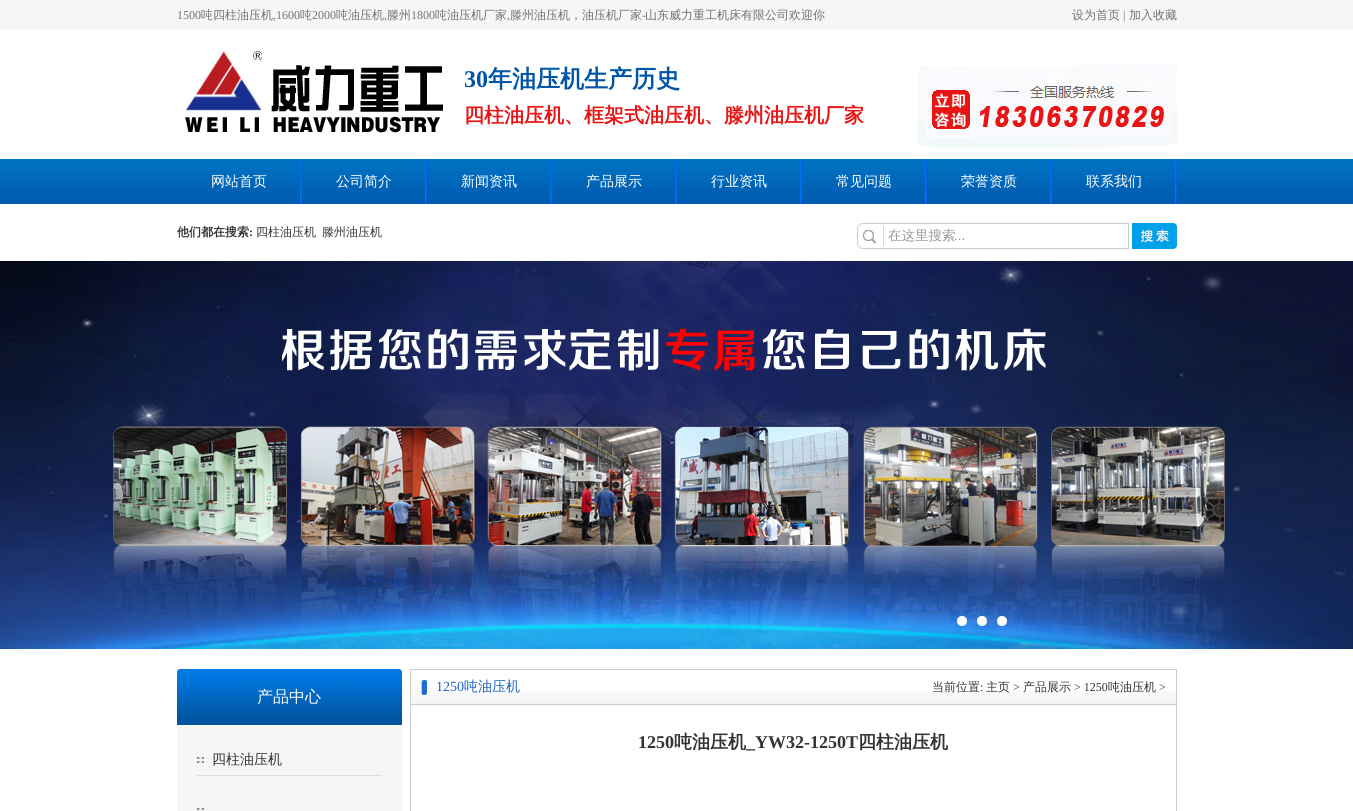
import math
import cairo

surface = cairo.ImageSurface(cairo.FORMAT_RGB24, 1353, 811)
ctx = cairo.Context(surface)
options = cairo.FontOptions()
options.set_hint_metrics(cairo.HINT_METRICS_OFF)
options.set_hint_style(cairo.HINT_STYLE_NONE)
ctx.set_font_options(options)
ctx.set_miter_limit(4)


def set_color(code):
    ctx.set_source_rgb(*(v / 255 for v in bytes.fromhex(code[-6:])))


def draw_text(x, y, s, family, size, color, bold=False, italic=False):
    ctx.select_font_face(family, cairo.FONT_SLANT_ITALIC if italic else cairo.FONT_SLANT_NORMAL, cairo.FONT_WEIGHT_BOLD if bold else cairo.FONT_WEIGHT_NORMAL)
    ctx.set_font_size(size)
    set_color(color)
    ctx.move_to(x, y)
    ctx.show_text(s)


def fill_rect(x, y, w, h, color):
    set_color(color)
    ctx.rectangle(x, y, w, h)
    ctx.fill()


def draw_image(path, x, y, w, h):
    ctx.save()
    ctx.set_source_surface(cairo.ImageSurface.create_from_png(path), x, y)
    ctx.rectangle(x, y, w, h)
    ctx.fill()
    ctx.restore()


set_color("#ffffff")
ctx.paint()
fill_rect(0, 0, 1353, 30, "#f6f6f6")
draw_text(177, 19, "1500", "Liberation Serif", 12, "#727272")
draw_text(201, 19, "吨四柱油压机", "WenQuanYi Zen Hei Medium", 12, "#727272")
draw_text(273, 19, ",1600", "Liberation Serif", 12, "#727272")
draw_text(300, 19, "吨", "WenQuanYi Zen Hei Medium", 12, "#727272")
draw_text(312, 19, "2000", "Liberation Serif", 12, "#727272")
draw_text(336, 19, "吨油压机", "WenQuanYi Zen Hei Medium", 12, "#727272")
draw_text(387, 19, "滕州", "WenQuanYi Zen Hei Medium", 12, "#727272")
draw_text(411, 19, "1800", "Liberation Serif", 12, "#727272")
draw_text(435, 19, "吨油压机厂家", "WenQuanYi Zen Hei Medium", 12, "#727272")
draw_text(510, 19, "滕州油压机，油压机厂家", "WenQuanYi Zen Hei Medium", 12, "#727272")
draw_text(642, 19, "-", "Liberation Serif", 12, "#727272")
draw_text(645, 19, "山东威力重工机床有限公司欢迎你", "WenQuanYi Zen Hei Medium", 12, "#727272")
draw_text(1072, 19, "设为首页", "WenQuanYi Zen Hei Medium", 12, "#727272")
draw_text(1123, 19, "|", "Liberation Serif", 12, "#727272")
draw_text(1129, 19, "加入收藏", "WenQuanYi Zen Hei Medium", 12, "#727272")
draw_text(384, 19, ",", "Liberation Serif", 12, "#727272")
draw_text(507, 19, ",", "Liberation Serif", 12, "#727272")
draw_image("assets/img1.png", 185, 46, 263, 88)
draw_text(464, 87, "30", "Liberation Serif", 24, "#0055a6", bold=True)
draw_text(488, 87, "年油压机生产历史", "WenQuanYi Zen Hei", 24, "#0055a6", bold=True)
draw_text(464, 122, "四柱油压机、框架式油压机、滕州油压机厂家", "WenQuanYi Zen Hei", 20, "#e81515", bold=True)
draw_image("assets/img2.png", 917, 63, 260, 86)
draw_image("assets/img3.png", 0, 159, 1353, 45)
draw_image("assets/img4.png", 300, 159, 2, 45)
draw_text(211, 186, "网站首页", "WenQuanYi Zen Hei Medium", 14, "#ffffff")
draw_image("assets/img4.png", 425, 159, 2, 45)
draw_text(336, 186, "公司简介", "WenQuanYi Zen Hei Medium", 14, "#ffffff")
draw_image("assets/img4.png", 550, 159, 2, 45)
draw_text(461, 186, "新闻资讯", "WenQuanYi Zen Hei Medium", 14, "#ffffff")
draw_image("assets/img4.png", 675, 159, 2, 45)
draw_text(586, 186, "产品展示", "WenQuanYi Zen Hei Medium", 14, "#ffffff")
draw_image("assets/img4.png", 800, 159, 2, 45)
draw_text(711, 186, "行业资讯", "WenQuanYi Zen Hei Medium", 14, "#ffffff")
draw_image("assets/img4.png", 925, 159, 2, 45)
draw_text(836, 186, "常见问题", "WenQuanYi Zen Hei Medium", 14, "#ffffff")
draw_image("assets/img4.png", 1050, 159, 2, 45)
draw_text(961, 186, "荣誉资质", "WenQuanYi Zen Hei Medium", 14, "#ffffff")
draw_image("assets/img4.png", 1175, 159, 2, 45)
draw_text(1086, 186, "联系我们", "WenQuanYi Zen Hei Medium", 14, "#ffffff")
draw_text(177, 236, "他们都在搜索", "WenQuanYi Zen Hei", 12, "#333333", bold=True)
draw_text(249, 236, ":", "Liberation Serif", 12, "#333333", bold=True)
draw_text(256, 236, "四柱油压机", "WenQuanYi Zen Hei Medium", 12, "#333333")
draw_text(322, 236, "滕州油压机", "WenQuanYi Zen Hei Medium", 12, "#333333")
draw_image("assets/img5.png", 863, 226, 21, 20)
ctx.new_path()
ctx.move_to(863, 223.5)
ctx.line_to(1128.5, 223.5)
ctx.line_to(1128.5, 248.5)
ctx.line_to(863, 248.5)
ctx.curve_to(860, 248.5, 857.5, 246, 857.5, 243)
ctx.line_to(857.5, 229)
ctx.curve_to(857.5, 226, 860, 223.5, 863, 223.5)
ctx.close_path()
set_color("#cccccc")
ctx.set_line_width(1)
ctx.stroke()
draw_text(888, 240, "在这里搜索", "WenQuanYi Zen Hei Medium", 13.5, "#999999")
draw_text(954, 240, "...", "Liberation Sans", 13.5, "#999999")
draw_image("assets/img6.png", 1132, 223, 45, 26)
draw_image("assets/img7.png", 0, 261, 1353, 388)
set_color("#ffffff")
ctx.arc(962, 621, 5, 0, 2 * math.pi)
ctx.fill()
ctx.arc(982, 621, 5, 0, 2 * math.pi)
ctx.fill()
ctx.arc(1002, 621, 5, 0, 2 * math.pi)
ctx.fill()
fill_rect(177, 725, 225, 86, "#f6f6f6")
draw_image("assets/img8.png", 177, 669, 225, 56)
draw_text(257, 702, "产品中心", "WenQuanYi Zen Hei Medium", 16, "#ffffff")
draw_image("assets/img9.png", 197, 757, 7, 6)
fill_rect(197, 775, 185, 1, "#dfdfdf")
draw_text(212, 764, "四柱油压机", "WenQuanYi Zen Hei Medium", 14, "#333333")
draw_image("assets/img10.png", 197, 808, 7, 2)
ctx.rectangle(410.5, 669.5, 766, 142)
set_color("#cccccc")
ctx.stroke()
draw_image("assets/img11.png", 411, 691, 765, 13)
fill_rect(411, 704, 765, 1, "#cccccc")
draw_image("assets/img12.png", 411, 680, 16, 15)
draw_text(436, 691, "1250", "Liberation Serif", 14, "#1c64c6")
draw_text(464, 691, "吨油压机", "WenQuanYi Zen Hei Medium", 14, "#1c64c6")
draw_text(932, 691, "当前位置", "WenQuanYi Zen Hei Medium", 12, "#333333")
draw_text(980, 691, ":", "Liberation Serif", 12, "#333333")
draw_text(986, 691, "主页", "WenQuanYi Zen Hei Medium", 12, "#333333")
draw_text(1013, 691, ">", "Liberation Serif", 12, "#333333")
draw_text(1023, 691, "产品展示", "WenQuanYi Zen Hei Medium", 12, "#333333")
draw_text(1074, 691, "> 1250", "Liberation Serif", 12, "#333333")
draw_text(1108, 691, "吨油压机", "WenQuanYi Zen Hei Medium", 12, "#333333")
draw_text(1159, 691, ">", "Liberation Serif", 12, "#333333")
draw_text(638, 748, "1250", "Liberation Serif", 18, "#333333", bold=True)
draw_text(674, 748, "吨油压机", "WenQuanYi Zen Hei", 18, "#333333", bold=True)
draw_text(746, 748, "_YW32-1250T", "Liberation Serif", 18, "#333333", bold=True)
draw_text(858, 748, "四柱油压机", "WenQuanYi Zen Hei", 18, "#333333", bold=True)
surface.write_to_png("output.png")
